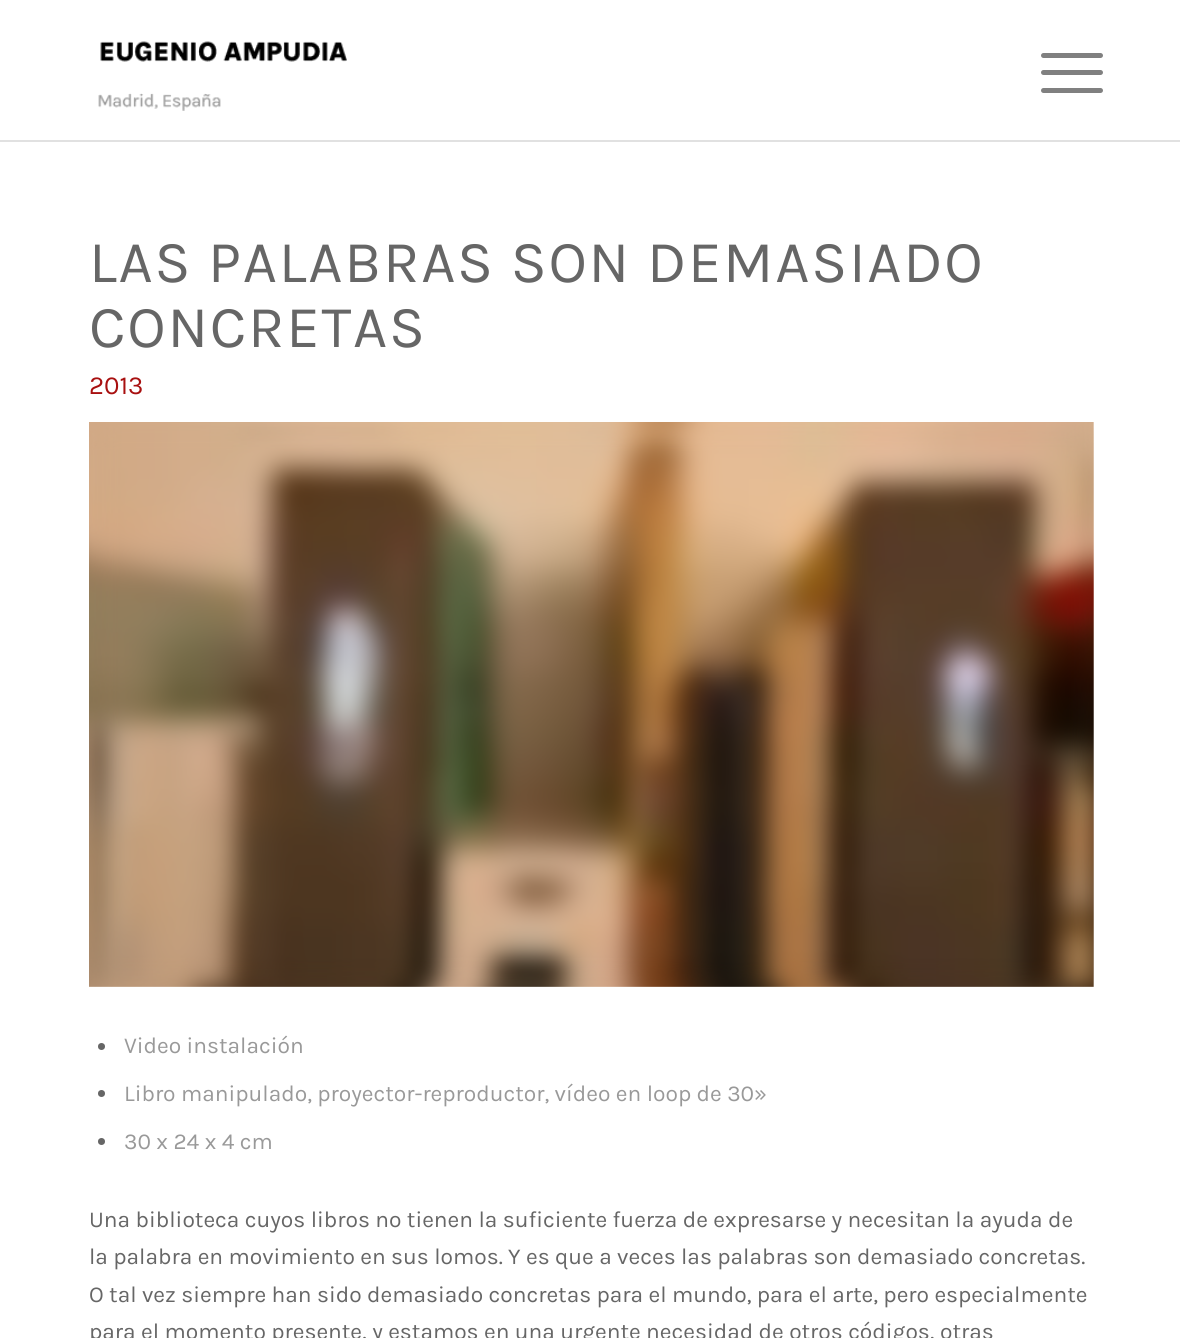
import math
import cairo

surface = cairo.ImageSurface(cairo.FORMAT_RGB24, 1180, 1338)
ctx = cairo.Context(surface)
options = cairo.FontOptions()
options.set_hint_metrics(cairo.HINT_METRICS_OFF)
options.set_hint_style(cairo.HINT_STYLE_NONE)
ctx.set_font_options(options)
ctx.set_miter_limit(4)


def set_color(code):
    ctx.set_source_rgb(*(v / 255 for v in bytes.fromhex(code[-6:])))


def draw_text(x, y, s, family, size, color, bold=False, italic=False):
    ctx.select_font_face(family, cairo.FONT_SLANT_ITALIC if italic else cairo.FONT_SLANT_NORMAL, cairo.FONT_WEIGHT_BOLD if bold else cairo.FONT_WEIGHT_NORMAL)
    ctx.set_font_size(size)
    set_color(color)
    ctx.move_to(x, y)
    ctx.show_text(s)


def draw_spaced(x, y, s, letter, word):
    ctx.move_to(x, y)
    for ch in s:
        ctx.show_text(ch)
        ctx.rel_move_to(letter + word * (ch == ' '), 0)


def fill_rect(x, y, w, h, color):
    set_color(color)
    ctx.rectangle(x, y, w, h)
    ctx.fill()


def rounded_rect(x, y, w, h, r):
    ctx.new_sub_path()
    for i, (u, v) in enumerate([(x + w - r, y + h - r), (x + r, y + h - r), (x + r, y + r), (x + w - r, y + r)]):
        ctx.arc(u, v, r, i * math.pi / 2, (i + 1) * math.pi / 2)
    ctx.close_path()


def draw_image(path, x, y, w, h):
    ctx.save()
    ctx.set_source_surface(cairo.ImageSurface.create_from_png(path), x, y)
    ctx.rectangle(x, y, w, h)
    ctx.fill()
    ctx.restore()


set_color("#ffffff")
ctx.paint()
fill_rect(0, 140, 1180, 2, "#e1e1e1")
draw_image("assets/img1.png", 98, 41, 249, 70)
set_color("#808080")
rounded_rect(1041, 70, 62, 5, 2.5)
ctx.fill()
rounded_rect(1041, 53, 62, 5, 2.5)
ctx.fill()
rounded_rect(1041, 88, 62, 5, 2.5)
ctx.fill()
ctx.select_font_face("Karla")
ctx.set_font_size(59.5)
set_color("#666666")
draw_spaced(89, 282, "LAS PALABRAS SON DEMASIADO", 1.75, 0)
draw_spaced(89, 347, "CONCRETAS", 1.75, 0)
draw_text(89, 394, "2013", "Karla", 26, "#a81010")
draw_image("assets/img2.png", 89, 422, 1005, 565)
set_color("#666666")
ctx.arc(101.5, 1046.5, 3.5, 0, 2 * math.pi)
ctx.fill()
draw_text(124, 1053, "Video instalación", "Karla", 22.75, "#999999")
set_color("#666666")
ctx.new_path()
ctx.arc(101.5, 1093.5, 3.5, 0, 2 * math.pi)
ctx.fill()
draw_text(124, 1101, "Libro manipulado, proyector-reproductor, vídeo en loop de 30»", "Karla", 22.75, "#999999")
set_color("#666666")
ctx.new_path()
ctx.arc(101.5, 1141.5, 3.5, 0, 2 * math.pi)
ctx.fill()
draw_text(124, 1149, "30 x 24 x 4 cm", "Karla", 22.75, "#999999")
draw_text(89, 1227, "Una biblioteca cuyos libros no tienen la suficiente fuerza de expresarse y necesitan la ayuda de", "Karla", 22.75, "#666666")
draw_text(89, 1264, "la palabra en movimiento en sus lomos. Y es que a veces las palabras son demasiado concretas.", "Karla", 22.75, "#666666")
draw_text(89, 1302, "O tal vez siempre han sido demasiado concretas para el mundo, para el arte, pero especialmente", "Karla", 22.75, "#666666")
draw_text(89, 1339, "para el momento presente, y estamos en una urgente necesidad de otros códigos, otras", "Karla", 22.75, "#666666")
surface.write_to_png("output.png")
